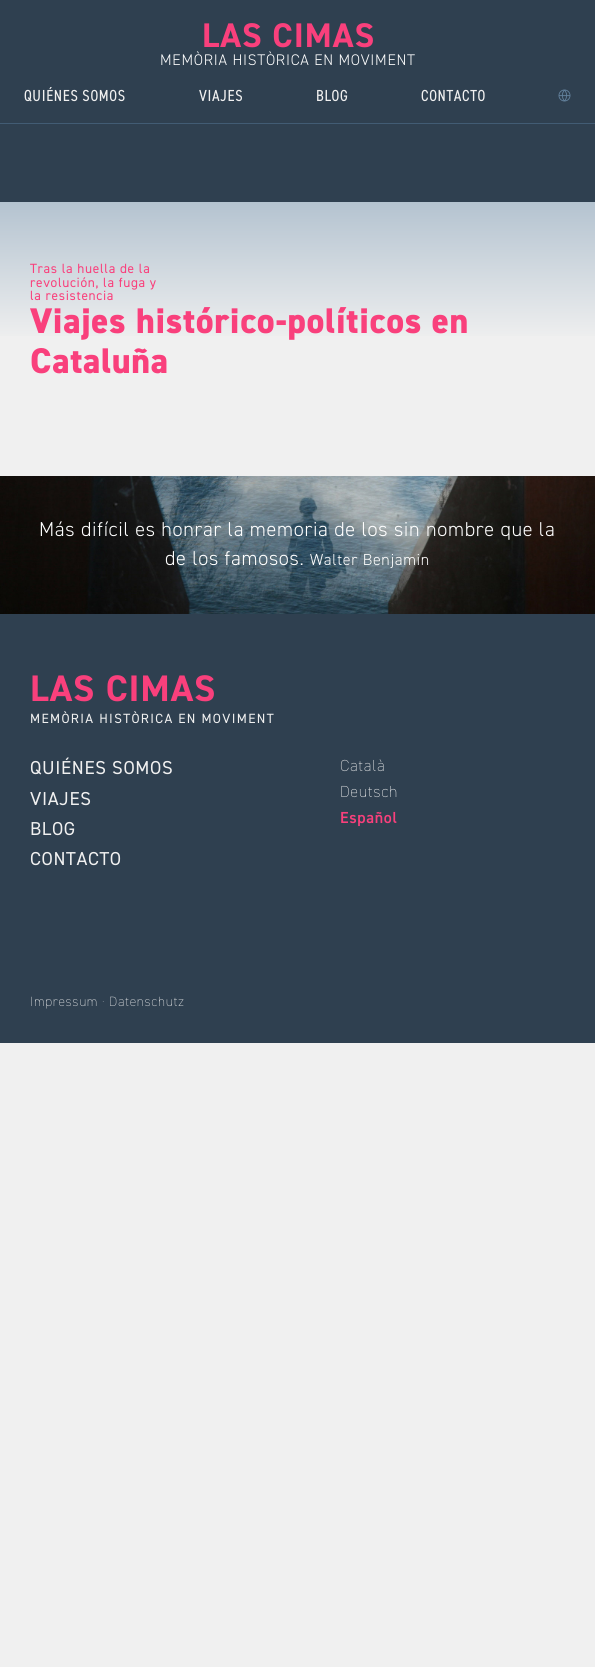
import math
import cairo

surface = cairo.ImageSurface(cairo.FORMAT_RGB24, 595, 1667)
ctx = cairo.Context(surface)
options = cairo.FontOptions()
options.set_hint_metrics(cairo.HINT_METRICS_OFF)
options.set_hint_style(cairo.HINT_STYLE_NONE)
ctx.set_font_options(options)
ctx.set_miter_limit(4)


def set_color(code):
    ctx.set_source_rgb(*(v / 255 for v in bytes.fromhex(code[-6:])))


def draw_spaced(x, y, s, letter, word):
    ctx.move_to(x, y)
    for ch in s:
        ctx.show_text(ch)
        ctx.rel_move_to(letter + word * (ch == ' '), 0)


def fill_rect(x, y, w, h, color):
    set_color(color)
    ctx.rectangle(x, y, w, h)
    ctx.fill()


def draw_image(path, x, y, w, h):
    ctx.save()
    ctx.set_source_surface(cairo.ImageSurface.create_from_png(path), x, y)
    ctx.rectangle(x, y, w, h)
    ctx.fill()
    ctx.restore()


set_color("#f0f0f0")
ctx.paint()
fill_rect(0, 0, 595, 123, "#2f4050")
fill_rect(0, 123, 595, 1, "#425c74")
ctx.select_font_face("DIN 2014", cairo.FONT_SLANT_NORMAL, cairo.FONT_WEIGHT_BOLD)
ctx.set_font_size(34.25)
set_color("#f9407c")
draw_spaced(202, 47, "LAS CIMAS", 1, 0)
ctx.select_font_face("DIN 2014 Light")
ctx.set_font_size(15.4)
set_color("#ffffff")
draw_spaced(160, 65, "MEMÒRIA HISTÒRICA EN MOVIMENT", 0.75, 0)
ctx.select_font_face("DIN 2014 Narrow")
ctx.set_font_size(16)
set_color("#f0f0f0")
draw_spaced(24, 101, "QUIÉNES SOMOS", 0.67, 0)
draw_spaced(199, 101, "VIAJES", 0.67, 0)
draw_spaced(316, 101, "BLOG", 0.67, 0)
draw_spaced(421, 101, "CONTACTO", 0.67, 0)
draw_image("assets/img1.png", 558, 89, 13, 13)
fill_rect(0, 124, 595, 78, "#2f4050")
gradient = cairo.LinearGradient(298, 202, 298, 402)
gradient.add_color_stop_rgba(0, 0.706, 0.765, 0.816, 1)
gradient.add_color_stop_rgba(0.7, 0.941, 0.941, 0.941, 1)
ctx.set_source(gradient)
ctx.rectangle(0, 202, 595, 134)
ctx.fill()
ctx.select_font_face("DIN 2014")
ctx.set_font_size(13.4)
set_color("#f9407c")
draw_spaced(30, 273, "Tras la huella de la", 0.67, 0)
draw_spaced(30, 287, "revolución, la fuga y", 0.67, 0)
draw_spaced(30, 300, "la resistencia", 0.67, 0)
ctx.select_font_face("DIN 2014 ExtraBold")
ctx.set_font_size(35.75)
draw_spaced(30, 333, "Viajes histórico-políticos en", 0.67, 0)
draw_spaced(30, 373, "Cataluña", 0.67, 0)
draw_image("assets/img2.png", 0, 476, 595, 138)
ctx.select_font_face("DIN 2014 Light")
ctx.set_font_size(20.15)
set_color("#ffffff")
draw_spaced(39, 536, "Más difícil es honrar la memoria de los sin nombre que la", 0.67, 0)
draw_spaced(165, 565, "de los famosos.", 0.67, 0)
ctx.set_font_size(16)
draw_spaced(310, 565, "Walter Benjamin", 0.67, 0)
fill_rect(0, 614, 595, 429, "#2f4050")
ctx.select_font_face("DIN 2014", cairo.FONT_SLANT_NORMAL, cairo.FONT_WEIGHT_BOLD)
ctx.set_font_size(37)
set_color("#f9407c")
draw_spaced(30, 701, "LAS CIMAS", 1, 0)
ctx.select_font_face("DIN 2014")
ctx.set_font_size(13.4)
set_color("#f0f0f0")
draw_spaced(30, 723, "MEMÒRIA HISTÒRICA EN MOVIMENT", 1.35, 0)
ctx.set_font_size(18.75)
draw_spaced(30, 774, "QUIÉNES SOMOS", 0.67, 0)
draw_spaced(30, 805, "VIAJES", 0.67, 0)
draw_spaced(30, 835, "BLOG", 0.67, 0)
draw_spaced(30, 865, "CONTACTO", 0.67, 0)
ctx.select_font_face("DIN 2014 ExtraLight")
ctx.set_font_size(16)
draw_spaced(340, 771, "Català", 0.67, 0)
draw_spaced(340, 797, "Deutsch", 0.67, 0)
ctx.select_font_face("DIN 2014 SemiBold")
set_color("#f9407c")
draw_spaced(340, 823, "Español", 0.67, 0)
ctx.select_font_face("DIN 2014 ExtraLight")
ctx.set_font_size(13.4)
set_color("#f0f0f0")
draw_spaced(30, 1006, "Impressum", 0.67, 0)
draw_spaced(102, 1006, "· Datenschutz", 0.67, 0)
surface.write_to_png("output.png")
